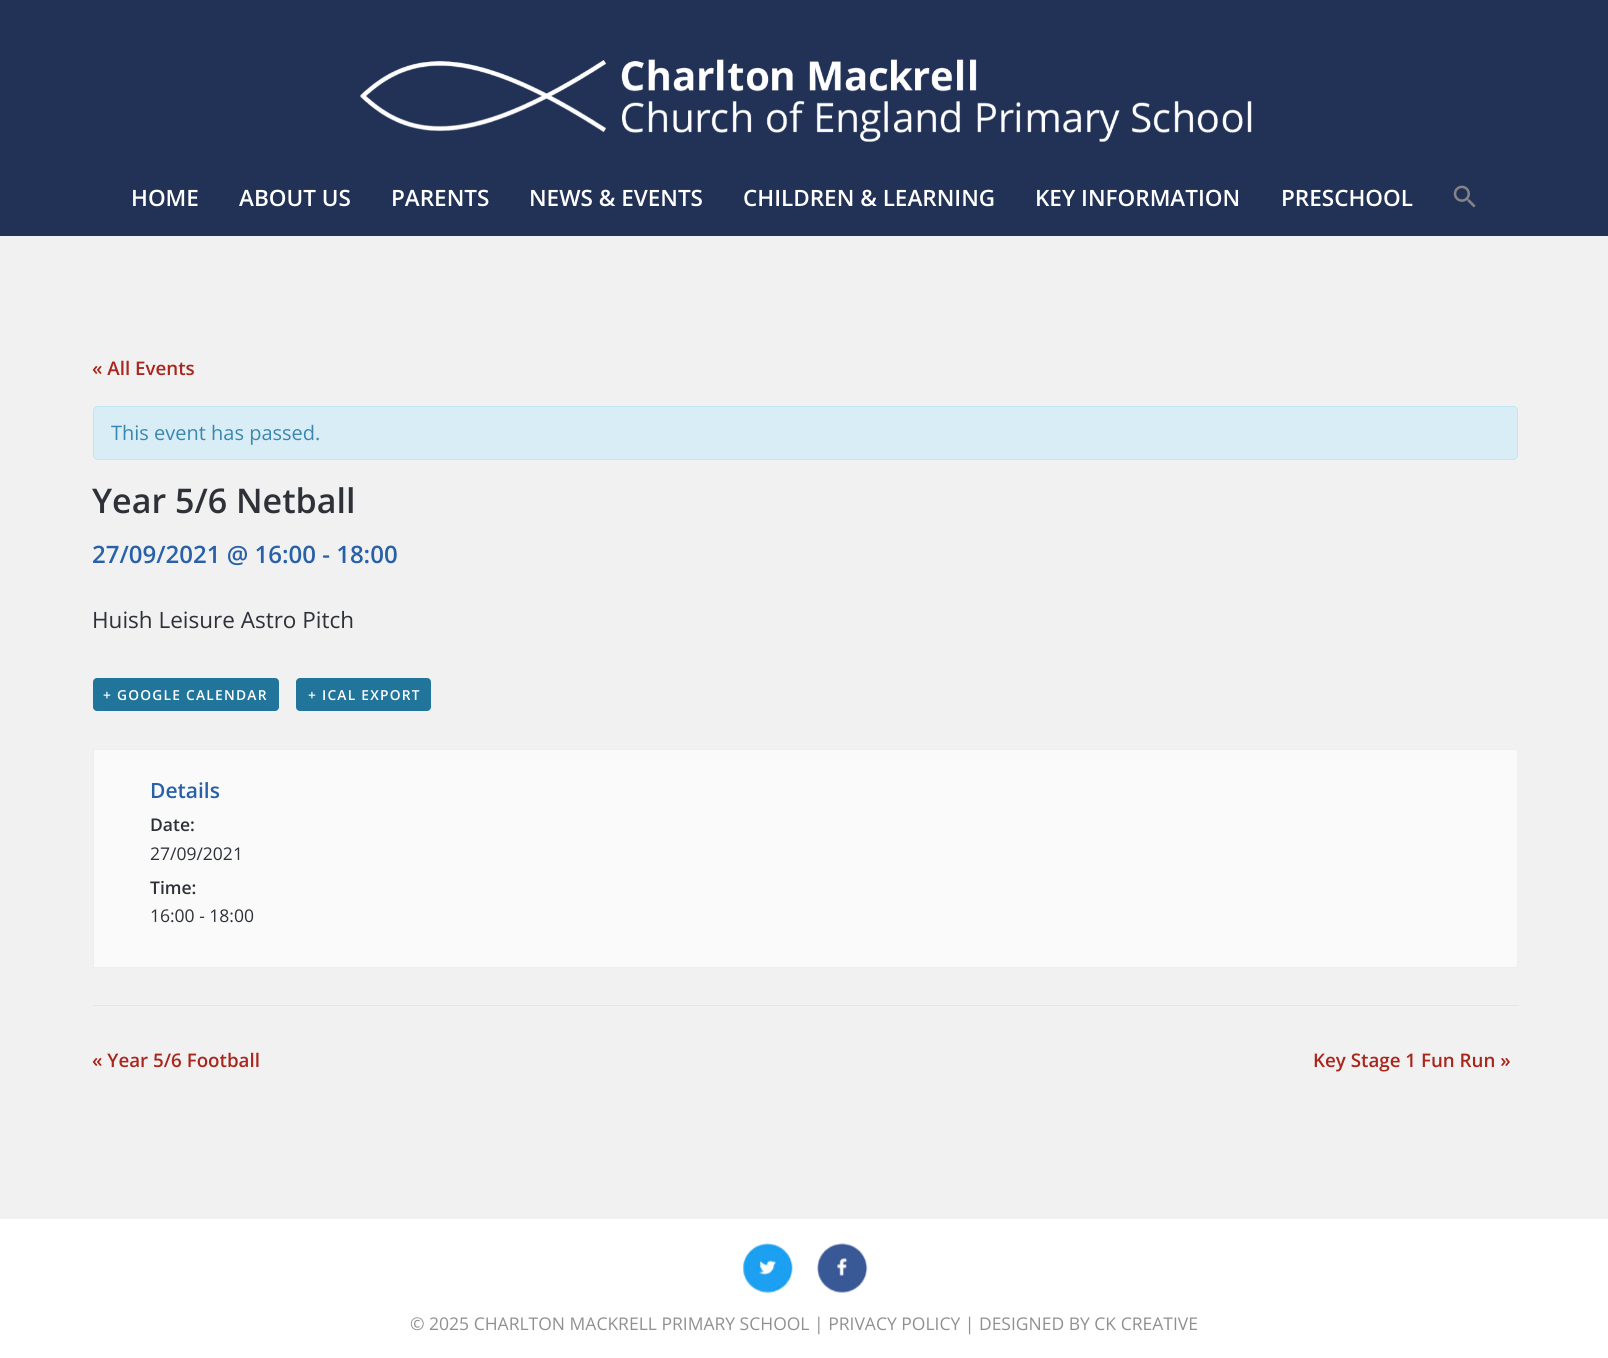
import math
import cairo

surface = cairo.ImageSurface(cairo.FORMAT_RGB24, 1608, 1358)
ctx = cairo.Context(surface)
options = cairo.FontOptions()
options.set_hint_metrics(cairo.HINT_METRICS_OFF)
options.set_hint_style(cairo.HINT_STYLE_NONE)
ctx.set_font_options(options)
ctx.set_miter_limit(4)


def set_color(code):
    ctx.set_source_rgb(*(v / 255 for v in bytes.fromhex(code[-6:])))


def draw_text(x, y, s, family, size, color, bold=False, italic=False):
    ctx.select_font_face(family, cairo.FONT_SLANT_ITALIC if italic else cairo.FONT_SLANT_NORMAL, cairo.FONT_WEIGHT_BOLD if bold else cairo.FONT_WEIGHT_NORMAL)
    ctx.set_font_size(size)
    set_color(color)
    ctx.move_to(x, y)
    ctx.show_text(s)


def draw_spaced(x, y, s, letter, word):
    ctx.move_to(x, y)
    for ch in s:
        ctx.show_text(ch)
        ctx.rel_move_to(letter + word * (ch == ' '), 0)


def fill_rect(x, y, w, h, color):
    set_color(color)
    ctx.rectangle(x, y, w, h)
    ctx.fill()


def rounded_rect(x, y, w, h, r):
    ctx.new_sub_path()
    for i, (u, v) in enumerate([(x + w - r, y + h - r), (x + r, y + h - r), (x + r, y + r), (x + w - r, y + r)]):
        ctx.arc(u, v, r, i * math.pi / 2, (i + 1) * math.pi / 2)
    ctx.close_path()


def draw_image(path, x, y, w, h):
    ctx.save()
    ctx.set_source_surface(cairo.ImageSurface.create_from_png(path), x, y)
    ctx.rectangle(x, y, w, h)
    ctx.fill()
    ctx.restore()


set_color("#f1f1f1")
ctx.paint()
fill_rect(0, 0, 1608, 236, "#213256")
draw_image("assets/img1.png", 360, 59, 892, 83)
draw_text(131, 206, "HOME", "Open Sans SemiBold", 22.5, "#ffffff")
draw_text(239, 206, "ABOUT US", "Open Sans SemiBold", 22.5, "#ffffff")
draw_text(391, 206, "PARENTS", "Open Sans SemiBold", 22.5, "#ffffff")
draw_text(529, 206, "NEWS & EVENTS", "Open Sans SemiBold", 22.5, "#ffffff")
draw_text(743, 206, "CHILDREN & LEARNING", "Open Sans SemiBold", 22.5, "#ffffff")
draw_text(1035, 206, "KEY INFORMATION", "Open Sans SemiBold", 22.5, "#ffffff")
draw_text(1281, 206, "PRESCHOOL", "Open Sans SemiBold", 22.5, "#ffffff")
draw_image("assets/img2.png", 1453, 185, 23, 23)
draw_text(92, 375, "« All Events", "Open Sans SemiBold", 18.75, "#a9261d")
set_color("#d9edf7")
rounded_rect(93.5, 406.5, 1424, 53, 4.5)
ctx.fill_preserve()
set_color("#bce8f1")
ctx.set_line_width(1)
ctx.stroke()
draw_text(111, 440, "This event has passed.", "Open Sans", 20, "#3a87ad")
draw_text(92, 513, "Year 5/6 Netball", "Open Sans SemiBold", 34, "#2e3137")
draw_text(92, 563, "27/09/2021 @ 16:00 - 18:00", "Open Sans SemiBold", 24, "#2861a8")
draw_text(92, 628, "Huish Leisure Astro Pitch", "Open Sans", 22.5, "#2e3137")
set_color("#21759b")
rounded_rect(93, 678, 186, 33, 4)
ctx.fill()
ctx.select_font_face("Open Sans SemiBold")
ctx.set_font_size(13.75)
set_color("#ffffff")
draw_spaced(103, 700, "+ GOOGLE CALENDAR", 1.25, 0)
set_color("#21759b")
rounded_rect(296, 678, 135, 33, 4)
ctx.fill()
set_color("#ffffff")
draw_spaced(308, 700, "+ ICAL EXPORT", 1.25, 0)
set_color("#fafafa")
ctx.rectangle(93.5, 749.5, 1424, 218)
ctx.fill_preserve()
set_color("#eeeeee")
ctx.stroke()
draw_text(150, 798, "Details", "Open Sans SemiBold", 21, "#2861a8")
draw_text(150, 831, "Date:", "Open Sans SemiBold", 17.5, "#2e3137")
draw_text(150, 860, "27/09/2021", "Open Sans", 17.5, "#2e3137")
draw_text(150, 894, "Time:", "Open Sans SemiBold", 17.5, "#2e3137")
draw_text(150, 922, "16:00 - 18:00", "Open Sans", 17.5, "#2e3137")
fill_rect(93, 1005, 1425, 1, "#e5e5e5")
draw_text(92, 1067, "« Year 5/6 Football", "Open Sans SemiBold", 18.75, "#a9261d")
draw_text(1313, 1067, "Key Stage 1 Fun Run »", "Open Sans SemiBold", 18.75, "#a9261d")
fill_rect(0, 1219, 1608, 139, "#ffffff")
draw_image("assets/img3.png", 743, 1243, 50, 50)
draw_image("assets/img4.png", 817, 1243, 51, 50)
draw_text(410, 1330, "© 2025 CHARLTON MACKRELL PRIMARY SCHOOL | PRIVACY POLICY | DESIGNED BY CK CREATIVE", "Open Sans", 17.5, "#909090")
surface.write_to_png("output.png")
